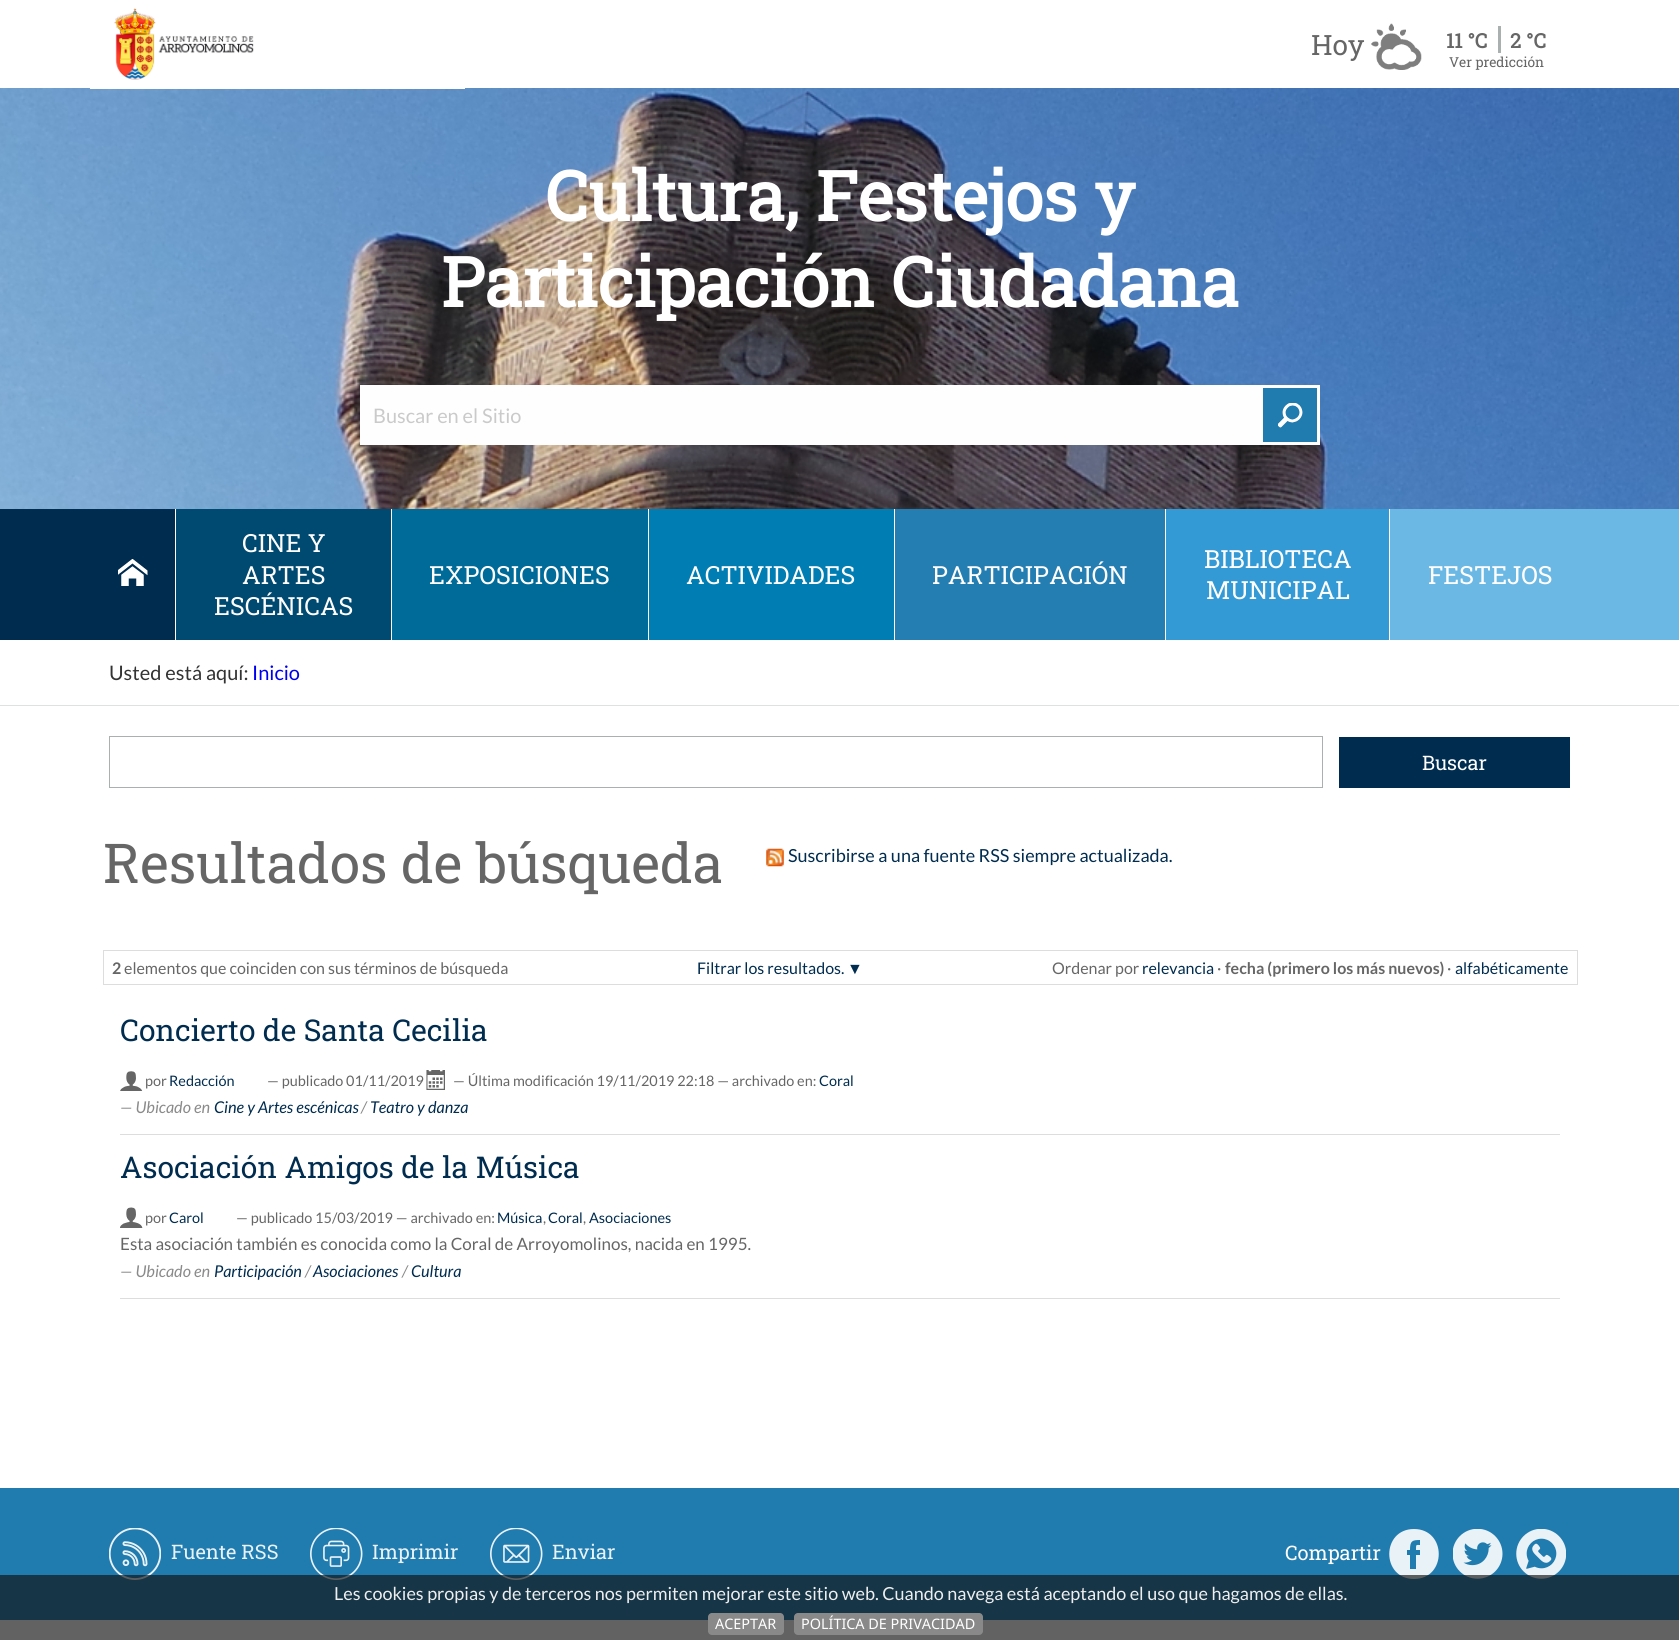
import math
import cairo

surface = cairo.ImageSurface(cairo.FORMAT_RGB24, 1679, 1640)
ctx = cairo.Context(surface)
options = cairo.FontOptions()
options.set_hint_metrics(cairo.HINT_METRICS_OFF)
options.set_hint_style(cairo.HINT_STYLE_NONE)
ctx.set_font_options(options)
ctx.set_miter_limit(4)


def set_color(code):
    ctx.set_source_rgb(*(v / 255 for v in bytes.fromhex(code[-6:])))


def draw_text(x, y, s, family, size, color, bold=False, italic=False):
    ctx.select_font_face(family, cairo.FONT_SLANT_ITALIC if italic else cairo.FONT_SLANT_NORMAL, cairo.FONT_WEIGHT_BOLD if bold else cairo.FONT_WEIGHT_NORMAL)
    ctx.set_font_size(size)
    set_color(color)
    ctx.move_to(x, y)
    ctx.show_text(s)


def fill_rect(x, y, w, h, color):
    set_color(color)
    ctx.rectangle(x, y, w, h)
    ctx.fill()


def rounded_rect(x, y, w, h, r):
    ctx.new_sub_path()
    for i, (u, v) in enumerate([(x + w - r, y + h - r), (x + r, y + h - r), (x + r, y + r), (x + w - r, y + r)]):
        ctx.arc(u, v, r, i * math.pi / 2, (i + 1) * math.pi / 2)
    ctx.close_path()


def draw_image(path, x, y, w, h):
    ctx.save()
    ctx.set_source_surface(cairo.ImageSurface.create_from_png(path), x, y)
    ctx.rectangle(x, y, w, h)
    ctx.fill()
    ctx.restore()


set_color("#ffffff")
ctx.paint()
draw_image("assets/img3.png", 0, 88, 1679, 421)
fill_rect(90, 88, 375, 1, "#ffffff")
draw_image("assets/img1.png", 114, 8, 140, 72)
draw_text(1311, 55, "Hoy", "Roboto Slab", 28, "#666666")
draw_image("assets/img2.png", 1371, 23, 51, 47)
draw_text(1446, 48, "11 °C", "Roboto Slab", 20, "#666666", bold=True)
draw_text(1510, 48, "2 °C", "Roboto Slab", 20, "#666666", bold=True)
fill_rect(1498, 26, 3, 27, "#aab0b0")
draw_text(1449, 67, "Ver predicción", "Roboto Slab", 13.75, "#666666")
draw_text(545, 221, "Cultura, Festejos y", "Roboto Slab", 68.75, "#ffffff", bold=True)
draw_text(441, 307, "Participación Ciudadana", "Roboto Slab", 68.75, "#ffffff", bold=True)
fill_rect(360, 385, 900, 60, "#fefefe")
draw_text(373, 423, "Buscar en el Sitio", "Lato", 20, "#cacaca")
set_color("#207baf")
ctx.rectangle(1261.5, 386.5, 57, 57)
ctx.fill_preserve()
set_color("#ffffff")
ctx.set_line_width(3)
ctx.stroke()
draw_image("assets/img4.png", 1278, 403, 25, 25)
fill_rect(0, 509, 175, 131, "#002c4f")
fill_rect(1390, 509, 289, 131, "#6bb8e4")
draw_image("assets/img5.png", 118, 559, 30, 27)
fill_rect(176, 509, 215, 131, "#004a71")
draw_text(242, 552, "CINE Y", "Roboto Slab", 25, "#ffffff")
draw_text(242, 584, "ARTES", "Roboto Slab", 25, "#ffffff")
draw_text(214, 615, "ESCÉNICAS", "Roboto Slab", 25, "#ffffff")
fill_rect(392, 509, 256, 131, "#006b99")
draw_text(429, 584, "EXPOSICIONES", "Roboto Slab", 25, "#ffffff")
fill_rect(649, 509, 245, 131, "#007db3")
draw_text(686, 584, "ACTIVIDADES", "Roboto Slab", 25, "#ffffff")
fill_rect(895, 509, 270, 131, "#247eb2")
draw_text(932, 584, "PARTICIPACIÓN", "Roboto Slab", 25, "#ffffff")
fill_rect(1166, 509, 223, 131, "#339ad6")
draw_text(1204, 568, "BIBLIOTECA", "Roboto Slab", 25, "#ffffff")
draw_text(1206, 599, "MUNICIPAL", "Roboto Slab", 25, "#ffffff")
draw_text(1428, 584, "FESTEJOS", "Roboto Slab", 25, "#ffffff")
fill_rect(0, 705, 1679, 1, "#dfe1e1")
draw_text(109, 680, "Usted está aquí:", "Lato", 20, "#333333")
draw_text(252, 680, "Inicio", "Lato", 20, "#0000ee")
ctx.rectangle(109.5, 736.5, 1213, 51)
set_color("#aab0b0")
ctx.set_line_width(1)
ctx.stroke()
fill_rect(1339, 737, 231, 51, "#002c4f")
draw_text(1422, 770, "Buscar", "Roboto Slab", 20, "#ffffff")
draw_text(103, 883, "Resultados de búsqueda", "Roboto Slab", 55, "#666666")
draw_image("assets/img6.png", 766, 848, 18, 19)
draw_text(788, 862, "Suscribirse a una fuente RSS siempre actualizada.", "Lato", 18, "#002c4f")
ctx.rectangle(103.5, 950.5, 1474, 34)
set_color("#dddddd")
ctx.stroke()
draw_text(112, 974, "2", "Lato", 16, "#666666", bold=True)
draw_text(124, 974, "elementos que coinciden con sus términos de búsqueda", "Lato", 16, "#666666")
draw_text(697, 974, "Filtrar los resultados.", "Lato", 16, "#002c4f")
draw_text(847, 974, "▼", "Liberation Sans", 16, "#002c4f")
draw_text(1052, 974, "Ordenar por", "Lato", 16, "#666666")
draw_text(1142, 974, "relevancia", "Lato", 16, "#002c4f")
draw_text(1217, 974, "·", "Lato", 16, "#666666")
draw_text(1225, 974, "fecha (primero los más nuevos)", "Lato", 16, "#666666", bold=True)
draw_text(1447, 974, "·", "Lato", 16, "#666666")
draw_text(1455, 974, "alfabéticamente", "Lato", 16, "#002c4f")
draw_text(120, 1041, "Concierto de Santa Cecilia", "Roboto Slab", 30, "#002c4f")
fill_rect(120, 1134, 1440, 1, "#dddddd")
draw_image("assets/img7.png", 120, 1071, 23, 20)
draw_text(145, 1086, "por", "Lato", 14.45, "#666666")
draw_text(169, 1086, "Redacción", "Lato", 14.45, "#002c4f")
draw_text(267, 1086, "— publicado 01/11/2019", "Lato", 14.45, "#666666")
draw_image("assets/img8.png", 426, 1070, 19, 20)
draw_text(453, 1086, "— Última modificación 19/11/2019 22:18 — archivado en:", "Lato", 14.45, "#666666")
draw_text(819, 1086, "Coral", "Lato", 14.45, "#002c4f")
draw_text(120, 1113, "— Ubicado en", "Lato", 16.25, "#8a8a8a", italic=True)
draw_text(214, 1113, "Cine y Artes escénicas", "Lato", 16.25, "#002c4f", italic=True)
draw_text(361, 1113, "/", "Lato", 16.25, "#8a8a8a", italic=True)
draw_text(370, 1113, "Teatro y danza", "Lato", 16.25, "#002c4f", italic=True)
draw_text(120, 1178, "Asociación Amigos de la Música", "Roboto Slab", 30, "#002c4f")
fill_rect(120, 1298, 1440, 1, "#dddddd")
draw_image("assets/img9.png", 120, 1207, 23, 21)
draw_text(145, 1223, "por", "Lato", 14.45, "#666666")
draw_text(169, 1223, "Carol", "Lato", 14.45, "#002c4f")
draw_text(236, 1223, "— publicado 15/03/2019 — archivado en:", "Lato", 14.45, "#666666")
draw_text(497, 1223, "Música", "Lato", 14.45, "#002c4f")
draw_text(543, 1223, ",", "Lato", 14.45, "#666666")
draw_text(548, 1223, "Coral", "Lato", 14.45, "#002c4f")
draw_text(583, 1223, ",", "Lato", 14.45, "#666666")
draw_text(589, 1223, "Asociaciones", "Lato", 14.45, "#002c4f")
draw_text(120, 1250, "Esta asociación también es conocida como la Coral de Arroyomolinos, nacida en 1995.", "Lato", 17, "#666666")
draw_text(120, 1277, "— Ubicado en", "Lato", 16.25, "#8a8a8a", italic=True)
draw_text(214, 1277, "Participación", "Lato", 16.25, "#002c4f", italic=True)
draw_text(305, 1277, "/", "Lato", 16.25, "#8a8a8a", italic=True)
draw_text(313, 1277, "Asociaciones", "Lato", 16.25, "#002c4f", italic=True)
draw_text(402, 1277, "/", "Lato", 16.25, "#8a8a8a", italic=True)
draw_text(411, 1277, "Cultura", "Lato", 16.25, "#002c4f", italic=True)
fill_rect(0, 1488, 1679, 132, "#207baf")
draw_image("assets/img10.png", 109, 1528, 52, 52)
draw_text(171, 1559, "Fuente RSS", "Roboto Slab", 20, "#e9f2f7")
draw_image("assets/img11.png", 310, 1528, 53, 52)
draw_text(372, 1559, "Imprimir", "Roboto Slab", 20, "#e9f2f7")
draw_image("assets/img12.png", 490, 1528, 53, 52)
draw_text(552, 1559, "Enviar", "Roboto Slab", 20, "#e9f2f7")
draw_text(1285, 1560, "Compartir", "Roboto Slab", 20, "#ffffff")
set_color("#e9f2f7")
ctx.new_path()
ctx.move_to(1414, 1529)
ctx.curve_to(1381, 1529, 1381, 1579, 1414, 1579)
ctx.curve_to(1447, 1579, 1447, 1529, 1414, 1529)
ctx.close_path()
ctx.move_to(1420, 1555)
ctx.line_to(1416, 1555)
ctx.line_to(1416, 1569)
ctx.line_to(1410, 1569)
ctx.line_to(1410, 1555)
ctx.line_to(1407, 1555)
ctx.line_to(1407, 1550)
ctx.line_to(1410, 1550)
ctx.curve_to(1410, 1541, 1412, 1540, 1420, 1540)
ctx.line_to(1420, 1545)
ctx.curve_to(1416, 1545, 1416, 1544, 1416, 1550)
ctx.line_to(1420, 1550)
ctx.close_path()
ctx.fill()
draw_image("assets/img13.png", 1453, 1529, 50, 50)
draw_image("assets/img14.png", 1516, 1529, 50, 50)
ctx.set_source_rgba(0.067, 0.067, 0.067, 0.66)
ctx.rectangle(0, 1575, 1679, 65)
ctx.fill()
draw_text(334, 1600, "Les cookies propias y de terceros nos permiten mejorar este sitio web. Cuando navega está aceptando el uso que hagamos de ellas.", "Lato", 18, "#eeeeee")
set_color("#898989")
rounded_rect(708, 1613, 76, 22, 4)
ctx.fill()
draw_text(715, 1629, "ACEPTAR", "Noto Sans", 14.4, "#ffffff")
set_color("#898989")
rounded_rect(794, 1613, 189, 22, 4)
ctx.fill()
draw_text(801, 1629, "POLÍTICA DE PRIVACIDAD", "Noto Sans", 14.4, "#ffffff")
surface.write_to_png("output.png")
